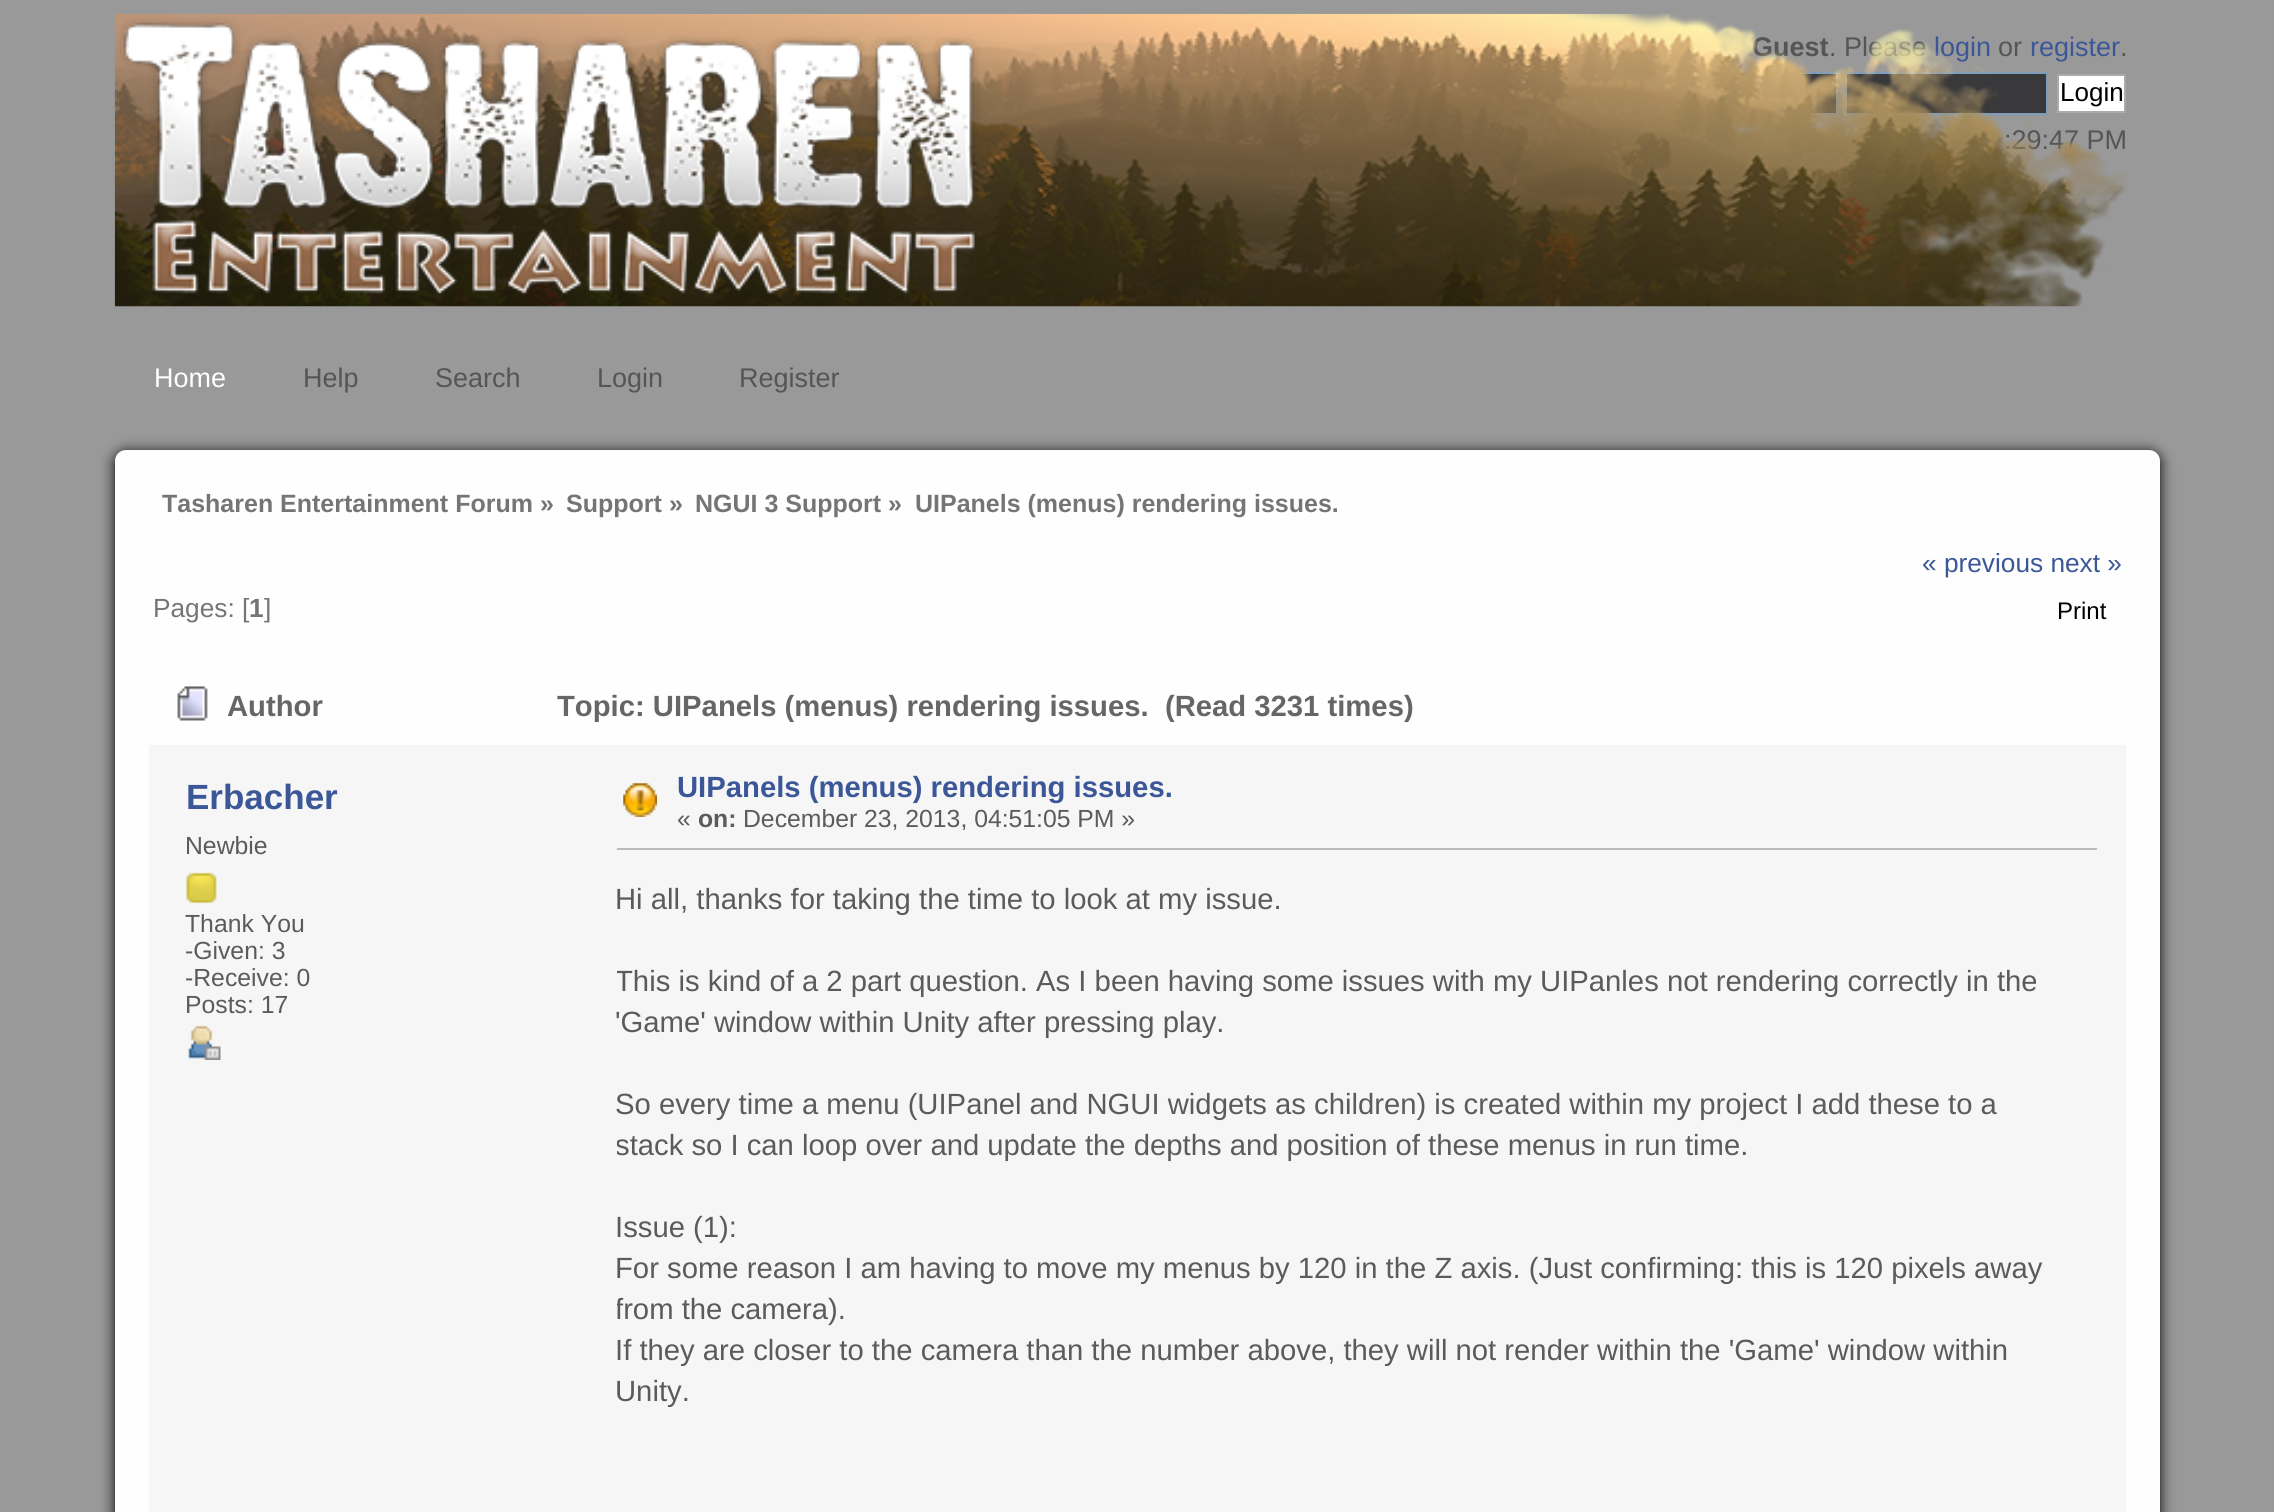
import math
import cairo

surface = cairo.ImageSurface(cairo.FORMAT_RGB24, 2274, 1512)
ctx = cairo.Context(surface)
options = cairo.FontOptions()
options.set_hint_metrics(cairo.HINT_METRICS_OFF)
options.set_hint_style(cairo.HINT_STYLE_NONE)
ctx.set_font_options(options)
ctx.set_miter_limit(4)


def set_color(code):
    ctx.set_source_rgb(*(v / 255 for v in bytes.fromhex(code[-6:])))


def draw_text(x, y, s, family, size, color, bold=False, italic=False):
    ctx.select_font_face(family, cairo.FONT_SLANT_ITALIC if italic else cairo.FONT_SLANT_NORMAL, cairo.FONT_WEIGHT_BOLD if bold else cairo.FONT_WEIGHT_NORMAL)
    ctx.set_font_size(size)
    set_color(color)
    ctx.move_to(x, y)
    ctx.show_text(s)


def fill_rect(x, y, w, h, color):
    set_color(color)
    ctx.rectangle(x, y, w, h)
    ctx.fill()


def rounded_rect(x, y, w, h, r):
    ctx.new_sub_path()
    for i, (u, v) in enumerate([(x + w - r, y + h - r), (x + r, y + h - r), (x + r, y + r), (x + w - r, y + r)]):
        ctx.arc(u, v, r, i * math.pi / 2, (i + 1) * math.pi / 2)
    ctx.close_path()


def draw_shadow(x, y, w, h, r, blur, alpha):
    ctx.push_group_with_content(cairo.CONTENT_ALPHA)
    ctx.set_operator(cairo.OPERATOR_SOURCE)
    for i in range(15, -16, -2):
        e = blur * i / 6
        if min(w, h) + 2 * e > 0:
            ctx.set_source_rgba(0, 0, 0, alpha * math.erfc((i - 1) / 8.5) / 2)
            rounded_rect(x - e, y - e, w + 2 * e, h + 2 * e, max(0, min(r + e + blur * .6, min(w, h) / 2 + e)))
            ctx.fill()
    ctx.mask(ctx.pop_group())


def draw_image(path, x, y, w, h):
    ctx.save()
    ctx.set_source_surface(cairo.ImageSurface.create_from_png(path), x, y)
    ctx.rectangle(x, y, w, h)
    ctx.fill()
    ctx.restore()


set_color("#999999")
ctx.paint()
draw_text(1752, 56, "Guest", "Liberation Sans", 27, "#555555", bold=True)
draw_text(1829, 56, ". Please", "Liberation Sans", 27, "#555555")
draw_text(1934, 56, "login", "Liberation Sans", 27, "#3b5798")
draw_text(1998, 56, "or", "Liberation Sans", 27, "#555555")
draw_text(2030, 56, "register", "Liberation Sans", 27, "#3b5798")
draw_text(2120, 56, ".", "Liberation Sans", 27, "#555555")
fill_rect(1736, 74, 100, 39, "#39393b")
ctx.rectangle(1637, 73, 200, 41)
set_color("#7f9db9")
ctx.stroke()
set_color("#39393b")
ctx.rectangle(1846, 73, 201, 41)
ctx.fill_preserve()
set_color("#7f9db9")
ctx.stroke()
set_color("#ffffff")
ctx.rectangle(2058, 75, 67, 37)
ctx.fill_preserve()
set_color("#aaaaaa")
ctx.stroke()
draw_text(2060, 101, "Login", "Liberation Sans", 26, "#000000")
draw_text(2004, 149, ":29:47 PM", "Liberation Sans", 27, "#555555")
draw_image("assets/img1.png", 114, 13, 2014, 294)
draw_text(154, 387, "Home", "Liberation Sans", 27, "#ffffff")
draw_text(303, 387, "Help", "Liberation Sans", 27, "#555555")
draw_text(435, 387, "Search", "Liberation Sans", 27, "#555555")
draw_text(597, 387, "Login", "Liberation Sans", 27, "#555555")
draw_text(739, 387, "Register", "Liberation Sans", 27, "#555555")
set_color("#000000")
draw_shadow(115, 452, 2045, 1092, 11, 7, 1)
set_color("#fefefe")
rounded_rect(115, 450, 2045, 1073, 11)
ctx.fill()
draw_text(162, 512, "Tasharen Entertainment Forum", "Liberation Sans", 25, "#757575", bold=True)
draw_text(540, 512, "»", "Liberation Sans", 25, "#757575", bold=True)
draw_text(566, 512, "Support", "Liberation Sans", 25, "#757575", bold=True)
draw_text(669, 512, "»", "Liberation Sans", 25, "#757575", bold=True)
draw_text(695, 512, "NGUI 3 Support", "Liberation Sans", 25, "#757575", bold=True)
draw_text(888, 512, "»", "Liberation Sans", 25, "#757575", bold=True)
draw_text(915, 512, "UIPanels (menus) rendering issues.", "Liberation Sans", 25, "#757575", bold=True)
draw_text(1922, 572, "« previous next »", "Liberation Sans", 26.25, "#3b5798")
draw_text(153, 617, "Pages: [", "Liberation Sans", 26.25, "#757575")
draw_text(249, 617, "1", "Liberation Sans", 26.25, "#757575", bold=True)
draw_text(264, 617, "]", "Liberation Sans", 26.25, "#757575")
draw_text(2057, 619, "Print", "Liberation Sans", 24, "#000000")
draw_image("assets/img2.png", 177, 686, 31, 35)
draw_text(227, 716, "Author", "Liberation Sans", 29.25, "#666666", bold=True)
draw_text(557, 716, "Topic: UIPanels (menus) rendering issues.  (Read 3231 times)", "Liberation Sans", 29.25, "#666666", bold=True)
fill_rect(149, 745, 1977, 767, "#f6f6f6")
draw_text(186, 809, "Erbacher", "Liberation Sans", 35, "#3b5798", bold=True)
draw_text(185, 854, "Newbie", "Liberation Sans", 24.75, "#5b5b5b")
draw_image("assets/img3.png", 186, 872, 31, 32)
draw_text(185, 932, "Thank You", "Liberation Sans", 24.75, "#5b5b5b")
draw_text(185, 959, "-Given: 3", "Liberation Sans", 24.75, "#5b5b5b")
draw_text(185, 986, "-Receive: 0", "Liberation Sans", 24.75, "#5b5b5b")
draw_text(185, 1013, "Posts: 17", "Liberation Sans", 24.75, "#5b5b5b")
draw_image("assets/img4.png", 188, 1025, 33, 35)
draw_image("assets/img5.png", 623, 783, 34, 34)
draw_text(677, 797, "UIPanels (menus) rendering issues.", "Liberation Sans", 29.25, "#3b5798", bold=True)
draw_text(677, 827, "«", "Liberation Sans", 24.75, "#5b5b5b")
draw_text(698, 827, "on:", "Liberation Sans", 24.75, "#5b5b5b", bold=True)
ctx.save()
ctx.rectangle(617, 770, 1509, 60)
ctx.clip()
draw_text(743, 827, "December 23, 2013, 04:51:05 PM »", "Liberation Sans", 24.75, "#5b5b5b")
ctx.restore()
fill_rect(617, 848, 1480, 2, "#bbbbbb")
draw_text(615, 909, "Hi all, thanks for taking the time to look at my issue.", "Liberation Sans", 29.25, "#5b5b5b")
ctx.save()
ctx.rectangle(617, 846, 1509, 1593)
ctx.clip()
draw_text(615, 991, "This is kind of a 2 part question. As I been having some issues with my UIPanles not rendering correctly in the", "Liberation Sans", 29.25, "#5b5b5b")
ctx.restore()
draw_text(615, 1032, "'Game' window within Unity after pressing play.", "Liberation Sans", 29.25, "#5b5b5b")
draw_text(615, 1114, "So every time a menu (UIPanel and NGUI widgets as children) is created within my project I add these to a", "Liberation Sans", 29.25, "#5b5b5b")
ctx.save()
ctx.rectangle(617, 846, 1509, 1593)
ctx.clip()
draw_text(615, 1155, "stack so I can loop over and update the depths and position of these menus in run time.", "Liberation Sans", 29.25, "#5b5b5b")
ctx.restore()
draw_text(615, 1237, "Issue (1):", "Liberation Sans", 29.25, "#5b5b5b")
draw_text(615, 1278, "For some reason I am having to move my menus by 120 in the Z axis. (Just confirming: this is 120 pixels away", "Liberation Sans", 29.25, "#5b5b5b")
ctx.save()
ctx.rectangle(617, 846, 1509, 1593)
ctx.clip()
draw_text(615, 1319, "from the camera).", "Liberation Sans", 29.25, "#5b5b5b")
ctx.restore()
draw_text(615, 1360, "If they are closer to the camera than the number above, they will not render within the 'Game' window within", "Liberation Sans", 29.25, "#5b5b5b")
draw_text(615, 1401, "Unity.", "Liberation Sans", 29.25, "#5b5b5b")
surface.write_to_png("output.png")
